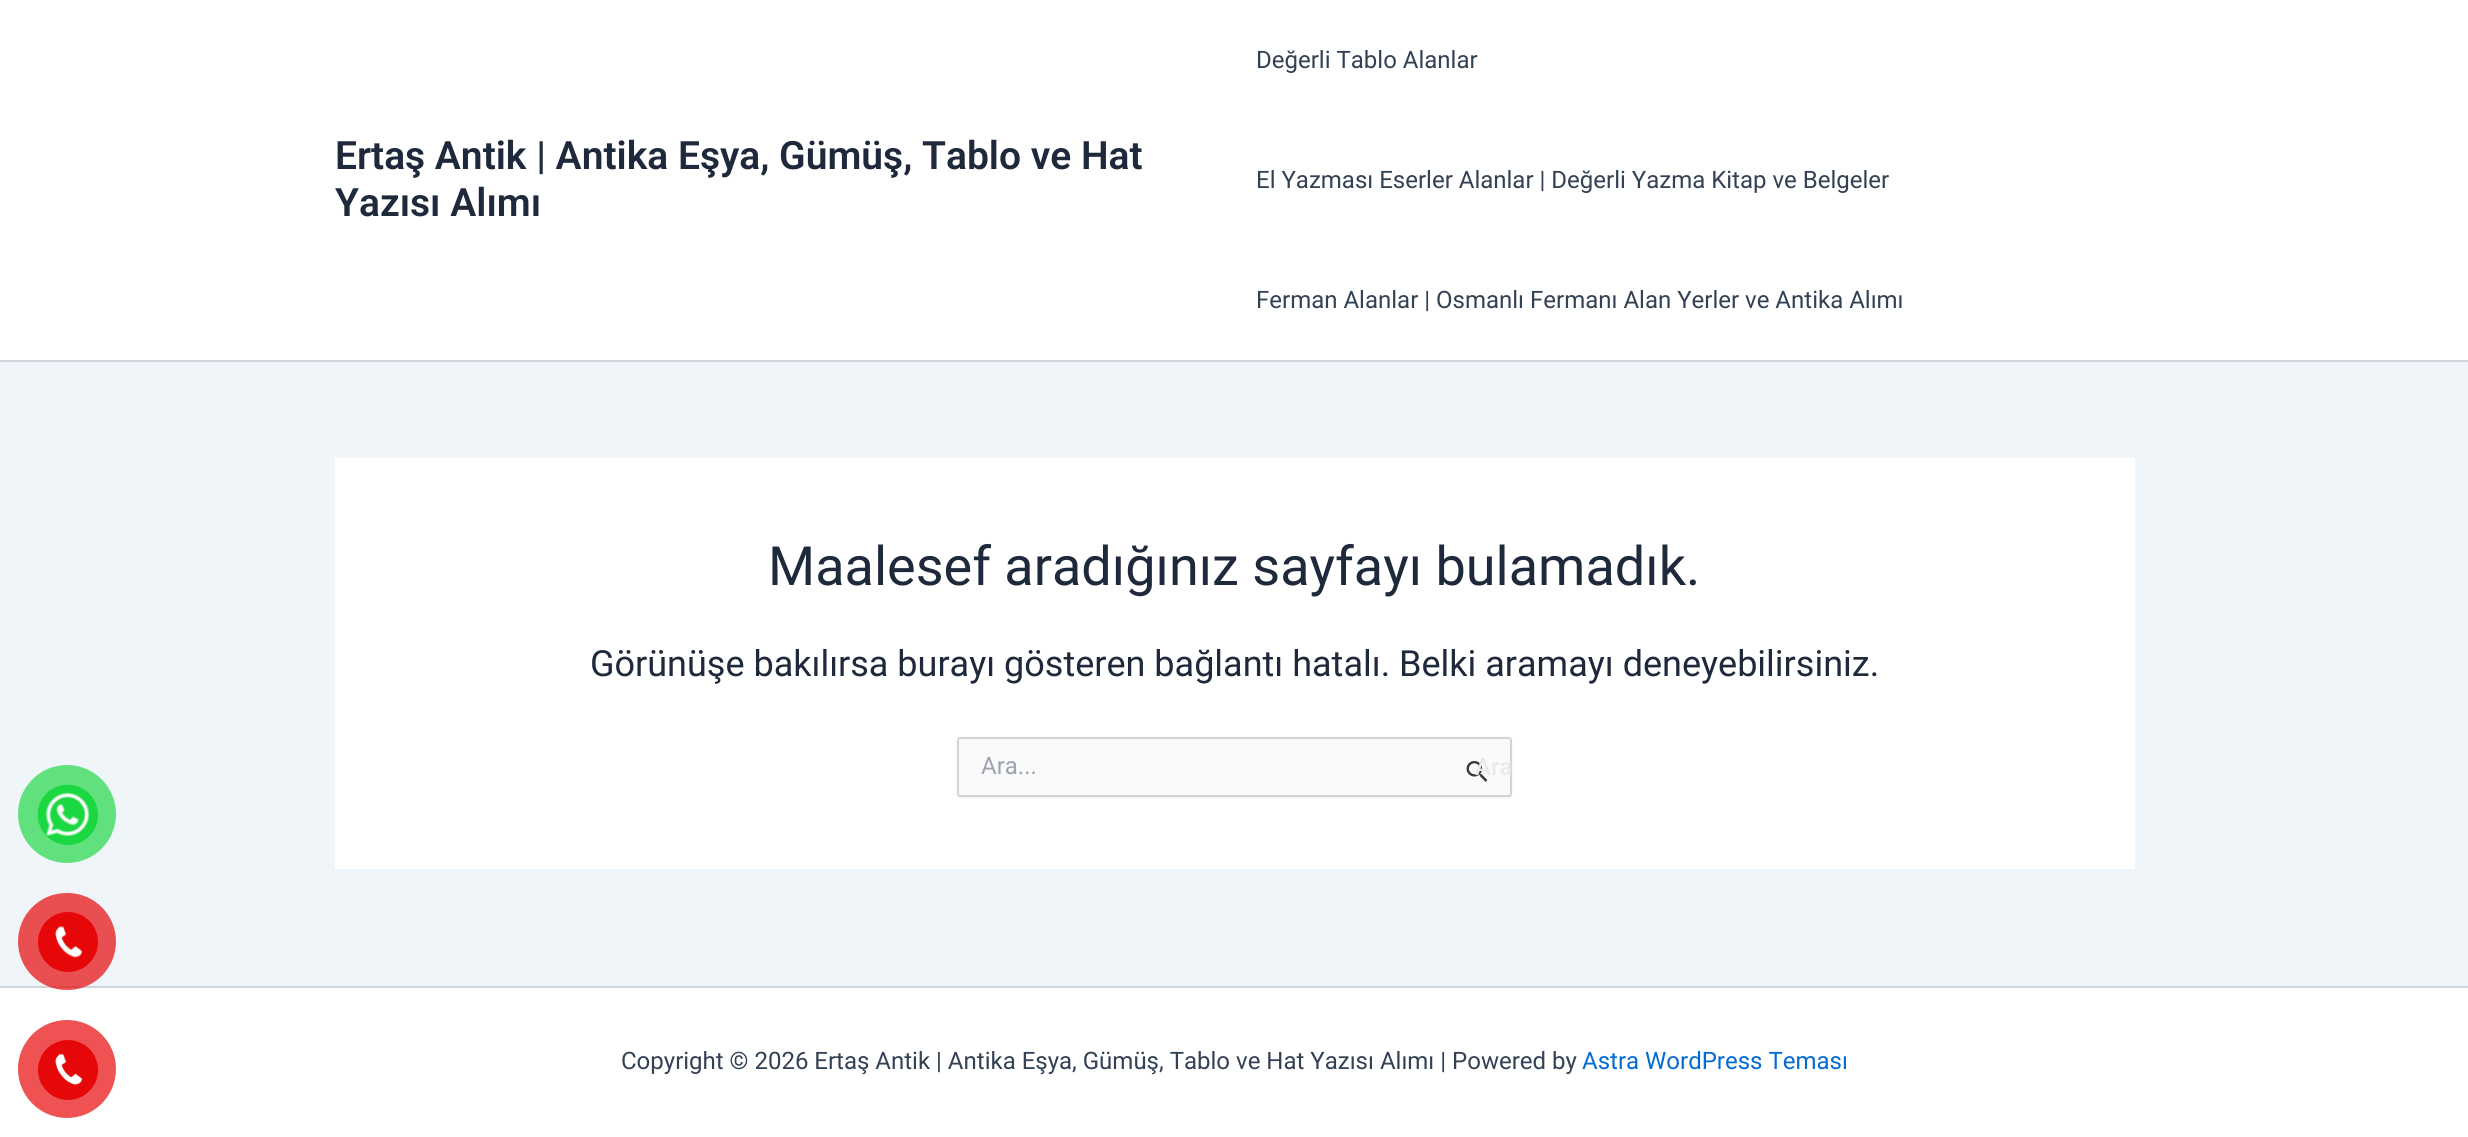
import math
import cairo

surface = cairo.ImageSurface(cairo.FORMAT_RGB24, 2468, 1137)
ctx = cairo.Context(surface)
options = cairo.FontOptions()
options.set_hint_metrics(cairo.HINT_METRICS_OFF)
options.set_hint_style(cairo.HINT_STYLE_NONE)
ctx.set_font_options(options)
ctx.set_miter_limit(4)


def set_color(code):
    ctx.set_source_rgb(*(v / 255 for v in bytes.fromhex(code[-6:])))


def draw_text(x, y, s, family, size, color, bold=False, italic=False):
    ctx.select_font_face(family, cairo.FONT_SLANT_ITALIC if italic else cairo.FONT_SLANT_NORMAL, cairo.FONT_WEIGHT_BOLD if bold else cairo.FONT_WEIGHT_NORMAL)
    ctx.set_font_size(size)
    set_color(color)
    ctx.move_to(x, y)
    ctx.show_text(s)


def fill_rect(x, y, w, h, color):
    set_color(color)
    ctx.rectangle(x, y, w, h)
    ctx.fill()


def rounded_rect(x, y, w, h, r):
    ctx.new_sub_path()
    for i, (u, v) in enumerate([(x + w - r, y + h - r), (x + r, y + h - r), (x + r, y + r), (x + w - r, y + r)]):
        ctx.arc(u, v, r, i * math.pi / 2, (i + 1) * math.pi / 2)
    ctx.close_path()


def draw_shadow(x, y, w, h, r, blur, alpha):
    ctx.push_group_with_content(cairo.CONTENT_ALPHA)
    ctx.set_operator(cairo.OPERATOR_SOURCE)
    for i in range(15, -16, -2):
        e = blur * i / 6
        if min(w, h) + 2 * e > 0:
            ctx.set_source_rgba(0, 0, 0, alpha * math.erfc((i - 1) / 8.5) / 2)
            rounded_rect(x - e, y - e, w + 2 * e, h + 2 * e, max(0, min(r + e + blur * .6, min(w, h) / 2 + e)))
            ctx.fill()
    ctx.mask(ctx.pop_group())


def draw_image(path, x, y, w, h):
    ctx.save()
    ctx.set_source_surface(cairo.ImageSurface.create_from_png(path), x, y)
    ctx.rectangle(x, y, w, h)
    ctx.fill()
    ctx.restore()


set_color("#f0f5fa")
ctx.paint()
set_color("#61e17d")
ctx.arc(67, 814, 49, 0, 2 * math.pi)
ctx.fill()
set_color("#1cd741")
ctx.arc(68, 815, 30, 0, 2 * math.pi)
ctx.fill()
draw_image("assets/img1.png", 37, 784, 59, 59)
fill_rect(0, 988, 2468, 149, "#ffffff")
fill_rect(0, 986, 2468, 2, "#d1d5db")
ctx.set_source_rgba(0.902, 0.031, 0.031, 0.7)
rounded_rect(18, 893, 98, 97, 48.5)
ctx.fill()
set_color("#e60808")
ctx.arc(68, 942, 30, 0, 2 * math.pi)
ctx.fill()
draw_image("assets/img2.png", 55, 926, 27, 32)
set_color("#ee5252")
ctx.arc(67, 1069, 49, 0, 2 * math.pi)
ctx.fill()
set_color("#e60808")
ctx.arc(68, 1070, 30, 0, 2 * math.pi)
ctx.fill()
draw_image("assets/img3.png", 55, 1053, 27, 32)
fill_rect(0, 0, 2468, 360, "#ffffff")
fill_rect(0, 360, 2468, 2, "#d1d5db")
draw_text(335, 169, "Ertaş Antik | Antika Eşya, Gümüş, Tablo ve Hat", "Roboto SemiBold", 39, "#1e293b")
draw_text(335, 216, "Yazısı Alımı", "Roboto SemiBold", 39, "#1e293b")
draw_text(1256, 68, "Değerli Tablo Alanlar", "Roboto", 24, "#334155")
draw_text(1256, 188, "El Yazması Eserler Alanlar | Değerli Yazma Kitap ve Belgeler", "Roboto", 24, "#334155")
draw_text(1256, 308, "Ferman Alanlar | Osmanlı Fermanı Alan Yerler ve Antika Alımı", "Roboto", 24, "#334155")
fill_rect(335, 458, 1800, 411, "#ffffff")
draw_text(768, 585, "Maalesef aradığınız sayfayı bulamadık.", "Roboto", 54, "#1e293b")
draw_text(590, 676, "Görünüşe bakılırsa burayı gösteren bağlantı hatalı. Belki aramayı deneyebilirsiniz.", "Roboto", 36, "#1e293b")
set_color("#000000")
draw_shadow(957, 738, 555, 60, 3, 1.5, 0.05)
set_color("#fafafa")
rounded_rect(958, 738, 553, 58, 2)
ctx.fill_preserve()
set_color("#d1d5db")
ctx.stroke()
draw_text(981, 774, "Ara...", "Roboto", 24, "#9ca3af")
draw_image("assets/img4.png", 1466, 761, 21, 21)
draw_text(1475, 775, "Ara", "Roboto Medium", 24, "#e9e9e9")
draw_text(621, 1069, "Copyright © 2026 Ertaş Antik | Antika Eşya, Gümüş, Tablo ve Hat Yazısı Alımı | Powered by", "Roboto", 24, "#334155")
draw_text(1582, 1069, "Astra WordPress Teması", "Roboto", 24, "#046bd2")
surface.write_to_png("output.png")
